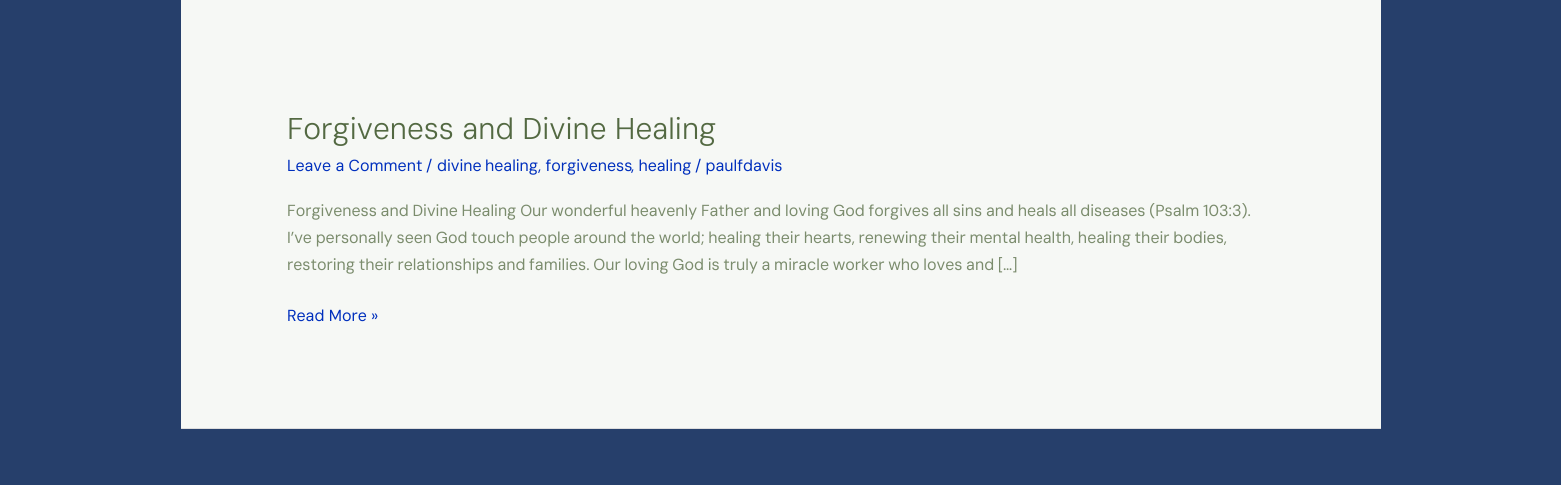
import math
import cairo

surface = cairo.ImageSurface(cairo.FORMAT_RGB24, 1561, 485)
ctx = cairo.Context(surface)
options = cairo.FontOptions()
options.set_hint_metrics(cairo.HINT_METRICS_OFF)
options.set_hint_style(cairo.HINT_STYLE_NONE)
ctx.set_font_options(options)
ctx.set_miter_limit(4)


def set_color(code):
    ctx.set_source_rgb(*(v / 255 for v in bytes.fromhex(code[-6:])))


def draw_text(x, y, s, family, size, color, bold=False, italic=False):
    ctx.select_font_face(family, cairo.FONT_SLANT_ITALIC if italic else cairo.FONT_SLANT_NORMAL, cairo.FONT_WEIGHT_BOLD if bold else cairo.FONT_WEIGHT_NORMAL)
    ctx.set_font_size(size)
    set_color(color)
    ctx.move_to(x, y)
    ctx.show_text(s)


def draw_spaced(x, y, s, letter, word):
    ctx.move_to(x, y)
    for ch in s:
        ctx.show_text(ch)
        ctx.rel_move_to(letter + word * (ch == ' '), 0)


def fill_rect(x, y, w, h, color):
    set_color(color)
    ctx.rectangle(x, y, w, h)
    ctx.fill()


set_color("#263f6b")
ctx.paint()
fill_rect(181, 0, 1200, 428, "#f6f8f5")
fill_rect(181, 428, 1200, 1, "#dddddd")
draw_text(287, 139, "Forgiveness and Divine Healing", "DM Sans Light", 30, "#536942")
draw_text(287, 171, "Leave a Comment", "DM Sans", 16, "#002fbd")
draw_text(426, 171, "/", "DM Sans", 16, "#002fbd")
draw_spaced(437, 171, "divine healing", 0, -1)
draw_text(538, 171, ", forgiveness", "DM Sans", 16, "#002fbd")
draw_text(631, 171, ", healing", "DM Sans", 16, "#002fbd")
draw_text(695, 171, "/ paulfdavis", "DM Sans", 16, "#002fbd")
set_color("#7b8c6d")
draw_spaced(287, 216, "Forgiveness and Divine Healing Our wonderful heavenly Father and loving God forgives all sins and heals all diseases (Psalm 103:3).", 0, -0.5)
draw_spaced(287, 243, "I’ve personally seen God touch people around the world; healing their hearts, renewing their mental health, healing their bodies,", 0, -0.6)
draw_spaced(287, 270, "restoring their relationships and families. Our loving God is truly a miracle worker who loves and […]", 0, -0.6)
draw_text(287, 321, "Read More »", "DM Sans", 16, "#002fbd")
surface.write_to_png("output.png")
